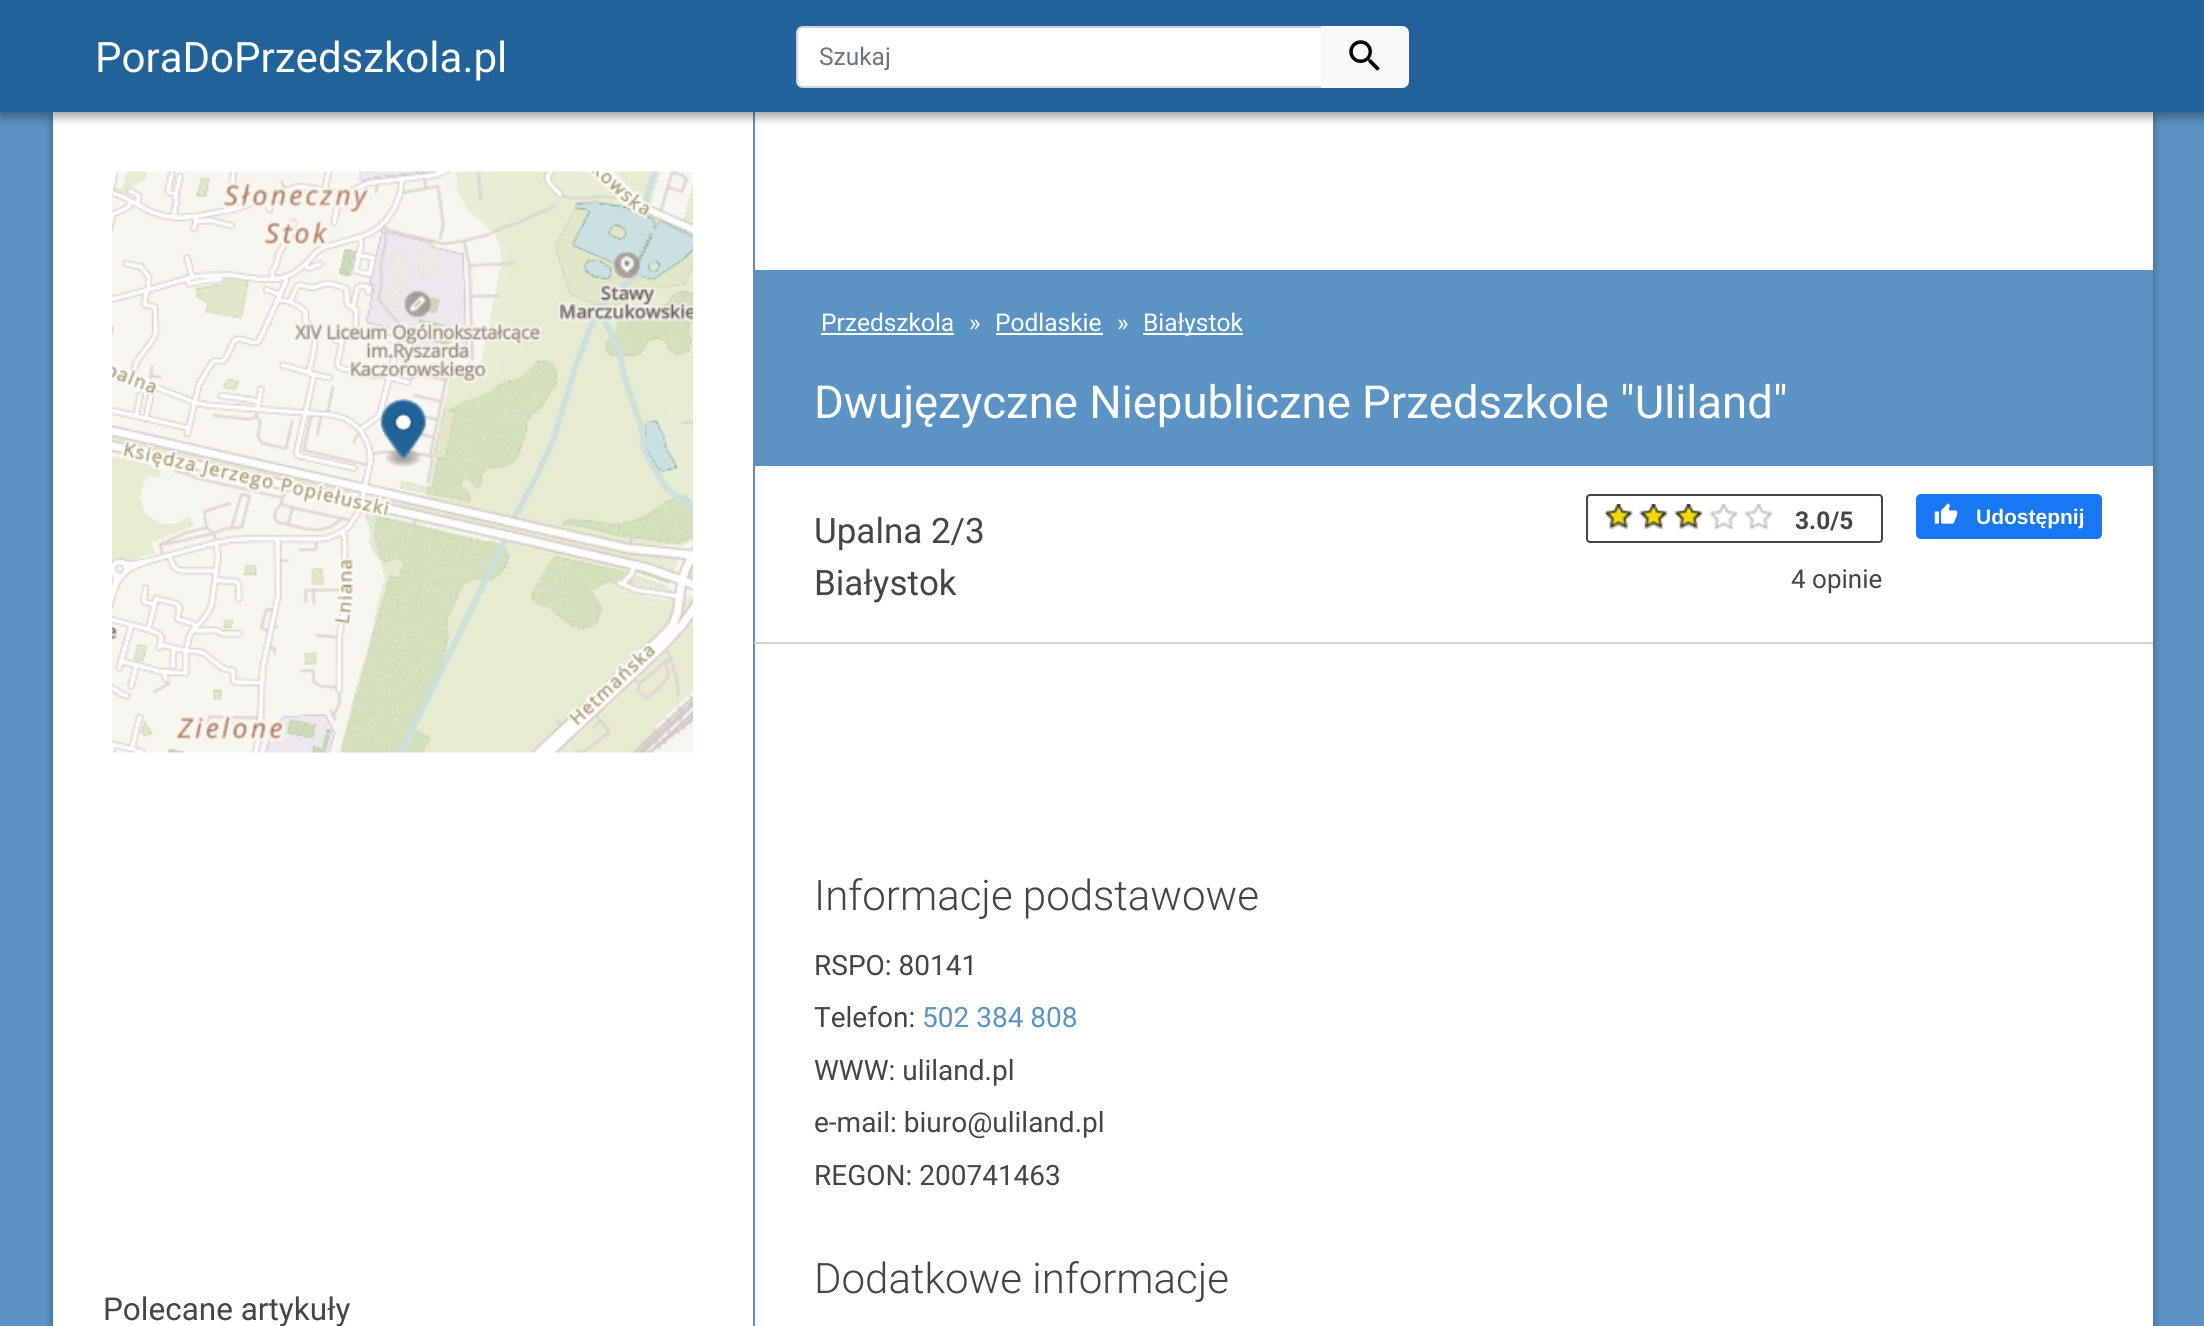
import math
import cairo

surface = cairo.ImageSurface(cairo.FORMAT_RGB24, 2204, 1326)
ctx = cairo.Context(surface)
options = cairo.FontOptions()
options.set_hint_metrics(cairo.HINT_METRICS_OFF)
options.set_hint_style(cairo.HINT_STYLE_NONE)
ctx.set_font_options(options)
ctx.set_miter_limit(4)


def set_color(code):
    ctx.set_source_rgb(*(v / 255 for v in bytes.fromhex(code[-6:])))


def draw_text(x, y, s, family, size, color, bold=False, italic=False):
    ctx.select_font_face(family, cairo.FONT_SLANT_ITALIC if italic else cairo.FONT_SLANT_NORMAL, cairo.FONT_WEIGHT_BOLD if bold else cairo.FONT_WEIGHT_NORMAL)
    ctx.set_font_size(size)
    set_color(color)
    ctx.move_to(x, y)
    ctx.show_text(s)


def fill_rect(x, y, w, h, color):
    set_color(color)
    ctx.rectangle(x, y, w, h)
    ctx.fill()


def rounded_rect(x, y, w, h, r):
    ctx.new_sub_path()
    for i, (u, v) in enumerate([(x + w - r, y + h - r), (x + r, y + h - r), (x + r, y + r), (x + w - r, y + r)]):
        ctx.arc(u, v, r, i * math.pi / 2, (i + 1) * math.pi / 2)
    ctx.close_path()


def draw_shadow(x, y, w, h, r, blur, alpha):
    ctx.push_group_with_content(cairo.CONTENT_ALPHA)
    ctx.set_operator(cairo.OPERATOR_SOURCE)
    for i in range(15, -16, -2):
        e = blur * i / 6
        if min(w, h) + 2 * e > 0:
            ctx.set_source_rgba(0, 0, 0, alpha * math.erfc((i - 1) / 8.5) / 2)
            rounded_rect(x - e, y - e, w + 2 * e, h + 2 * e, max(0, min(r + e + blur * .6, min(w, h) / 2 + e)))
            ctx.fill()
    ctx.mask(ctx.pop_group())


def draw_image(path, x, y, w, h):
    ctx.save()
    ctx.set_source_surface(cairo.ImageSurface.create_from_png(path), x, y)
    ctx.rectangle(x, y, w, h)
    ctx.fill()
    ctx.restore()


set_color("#5b94c4")
ctx.paint()
set_color("#000000")
draw_shadow(53, 117, 2100, 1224, 0, 5, 0.23)
draw_shadow(53, 117, 2100, 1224, 0, 5, 0.16)
fill_rect(53, 112, 2100, 1214, "#ffffff")
fill_rect(753, 112, 2, 1214, "#5b94c4")
set_color("#000000")
draw_shadow(0, 5, 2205, 112, 0, 5, 0.23)
draw_shadow(0, 5, 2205, 112, 0, 5, 0.16)
fill_rect(0, 0, 2204, 112, "#206299")
draw_text(95, 72, "PoraDoPrzedszkola.pl", "Roboto", 42, "#ffffff")
ctx.new_path()
ctx.move_to(803, 27)
ctx.line_to(1322, 27)
ctx.line_to(1322, 87)
ctx.line_to(803, 87)
ctx.curve_to(799.5, 87, 797, 84.5, 797, 81)
ctx.line_to(797, 33)
ctx.curve_to(797, 29.5, 799.5, 27, 803, 27)
ctx.close_path()
ctx.fill_preserve()
set_color("#ced4da")
ctx.stroke()
ctx.save()
ctx.rectangle(819, 42, 481, 28)
ctx.clip()
draw_text(819, 65, "Szukaj", "Roboto", 24.5, "#6c757d")
ctx.restore()
set_color("#f8f9fa")
ctx.new_path()
ctx.move_to(1322, 27)
ctx.line_to(1402, 27)
ctx.curve_to(1405.5, 27, 1408, 29.5, 1408, 33)
ctx.line_to(1408, 81)
ctx.curve_to(1408, 84.5, 1405.5, 87, 1402, 87)
ctx.line_to(1322, 87)
ctx.close_path()
ctx.fill_preserve()
ctx.stroke()
draw_image("assets/img1.png", 1349, 40, 31, 31)
fill_rect(755, 270, 1398, 196, "#5b94c4")
draw_text(821, 331, "Przedszkola", "Roboto", 24.5, "#ffffff")
fill_rect(821, 333, 133, 2, "#ffffff")
draw_text(969, 331, "»", "Roboto", 24.5, "#ffffff")
draw_text(995, 331, "Podlaskie", "Roboto", 24.5, "#ffffff")
fill_rect(996, 333, 107, 2, "#ffffff")
draw_text(1117, 331, "»", "Roboto", 24.5, "#ffffff")
fill_rect(1143, 333, 100, 2, "#ffffff")
draw_text(1143, 331, "Białystok", "Roboto", 24.5, "#ffffff")
draw_text(814, 418, "Dwujęzyczne Niepubliczne Przedszkole \"Uliland\"", "Roboto", 45.5, "#ffffff")
fill_rect(754, 642, 1399, 2, "#d3d3d3")
draw_text(814, 543, "Upalna 2/3", "Roboto", 35, "#454546")
draw_text(814, 595, "Białystok", "Roboto", 35, "#454546")
rounded_rect(1587, 495, 295, 47, 3)
ctx.stroke()
draw_image("assets/img2.png", 1605, 504, 168, 26)
draw_image("assets/img3.png", 1605, 504, 98, 25)
draw_text(1795, 529, "3.0/5", "Roboto", 24.5, "#454546", bold=True)
draw_text(1791, 588, "4 opinie", "Roboto", 26, "#454546")
set_color("#1877f2")
rounded_rect(1916, 494, 186, 45, 5)
ctx.fill()
draw_image("assets/img4.png", 1934, 503, 24, 21)
draw_text(1976, 524, "Udostępnij", "Liberation Sans", 21, "#ffffff", bold=True)
draw_text(814, 910, "Informacje podstawowe", "Roboto Light", 42, "#454546")
draw_text(814, 975, "RSPO: 80141", "Roboto", 28, "#454546")
draw_text(814, 1027, "Telefon:", "Roboto", 28, "#454546")
draw_text(922, 1027, "502 384 808", "Roboto", 28, "#5b94c4")
draw_text(814, 1080, "WWW: uliland.pl", "Roboto", 28, "#454546")
draw_text(814, 1132, "e-mail: biuro@uliland.pl", "Roboto", 28, "#454546")
draw_text(814, 1185, "REGON: 200741463", "Roboto", 28, "#454546")
draw_text(814, 1293, "Dodatkowe informacje", "Roboto Light", 42, "#454546")
draw_image("assets/img5.png", 112, 171, 581, 582)
draw_text(103, 1320, "Polecane artykuły", "Roboto", 31.5, "#454546")
surface.write_to_png("output.png")
